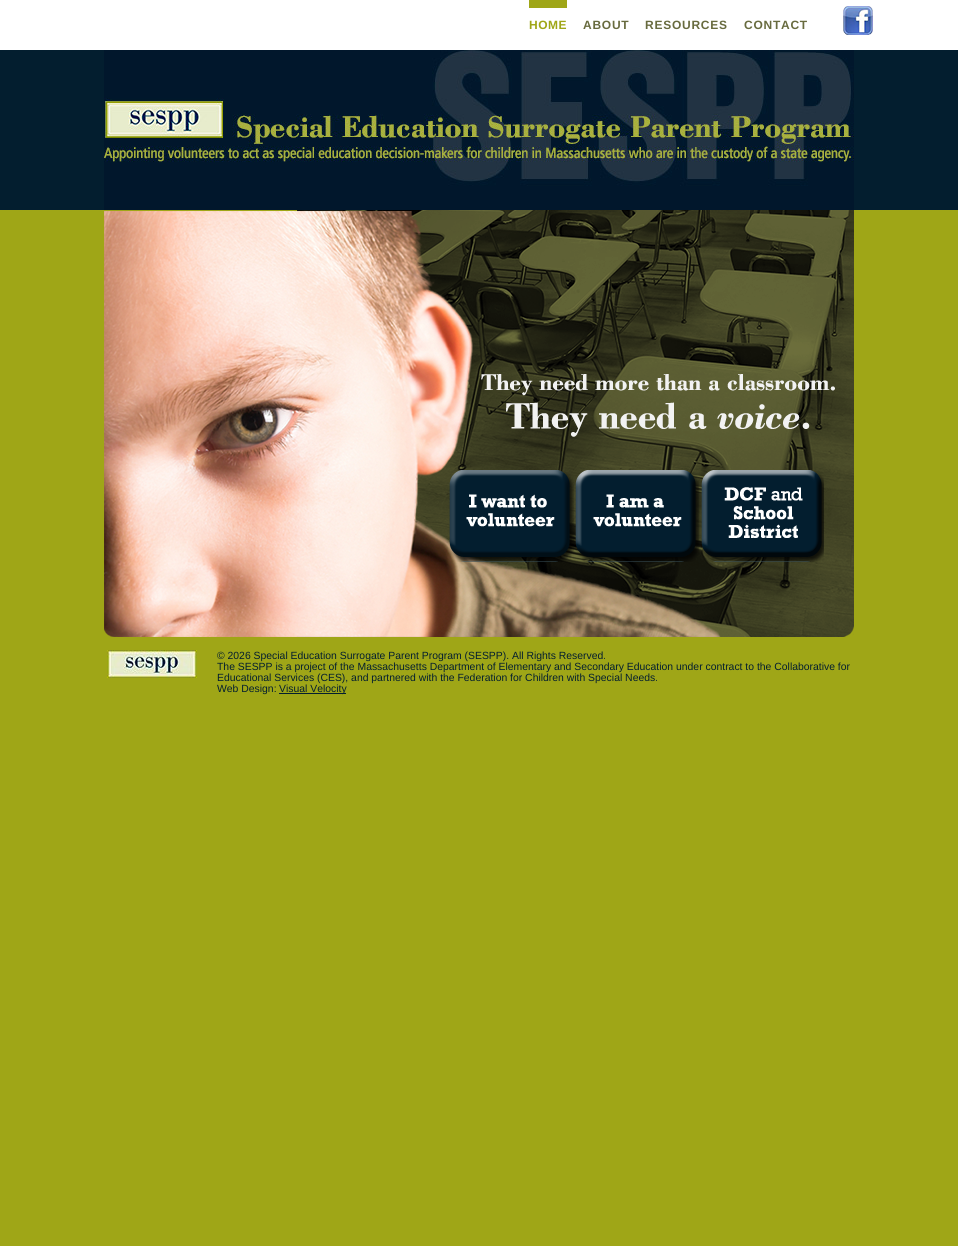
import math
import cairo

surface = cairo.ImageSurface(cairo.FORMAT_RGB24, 958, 1246)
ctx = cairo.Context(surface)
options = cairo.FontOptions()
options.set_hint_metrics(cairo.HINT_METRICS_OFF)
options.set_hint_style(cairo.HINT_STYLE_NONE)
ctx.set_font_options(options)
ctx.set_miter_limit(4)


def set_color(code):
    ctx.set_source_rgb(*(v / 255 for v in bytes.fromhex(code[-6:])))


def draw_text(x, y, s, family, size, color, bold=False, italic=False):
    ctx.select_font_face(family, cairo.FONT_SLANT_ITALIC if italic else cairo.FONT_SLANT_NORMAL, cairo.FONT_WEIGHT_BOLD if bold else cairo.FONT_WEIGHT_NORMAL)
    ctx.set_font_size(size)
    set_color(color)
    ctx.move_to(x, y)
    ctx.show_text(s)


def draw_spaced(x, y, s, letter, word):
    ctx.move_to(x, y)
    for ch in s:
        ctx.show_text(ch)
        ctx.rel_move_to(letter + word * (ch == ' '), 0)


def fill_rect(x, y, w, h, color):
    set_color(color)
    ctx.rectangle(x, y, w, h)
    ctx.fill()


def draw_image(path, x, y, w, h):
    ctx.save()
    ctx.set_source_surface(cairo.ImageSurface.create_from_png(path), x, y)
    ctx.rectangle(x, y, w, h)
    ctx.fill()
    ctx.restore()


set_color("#9fa617")
ctx.paint()
fill_rect(0, 50, 958, 160, "#031e2f")
fill_rect(0, 0, 958, 50, "#ffffff")
ctx.select_font_face("Liberation Sans", cairo.FONT_SLANT_NORMAL, cairo.FONT_WEIGHT_BOLD)
ctx.set_font_size(12)
set_color("#9fa617")
draw_spaced(529, 29, "HOME", 0.5, 0)
fill_rect(529, 0, 38, 8, "#9fa617")
set_color("#686b3f")
draw_spaced(583, 29, "ABOUT", 0.75, 0)
draw_spaced(645, 29, "RESOURCES", 0.75, 0)
draw_spaced(744, 29, "CONTACT", 0.75, 0)
draw_image("assets/img1.png", 843, 6, 30, 29)
draw_image("assets/img2.png", 104, 50, 750, 160)
draw_image("assets/img3.png", 104, 210, 750, 427)
draw_image("assets/img4.png", 449, 470, 125, 92)
draw_image("assets/img5.png", 574, 470, 125, 92)
draw_image("assets/img6.png", 699, 470, 125, 92)
draw_image("assets/img7.png", 107, 650, 90, 28)
draw_text(217, 659, "© 2026 Special Education Surrogate Parent Program (SESPP). All Rights Reserved.", "Liberation Sans", 10.4, "#031e2f")
draw_text(217, 670, "The SESPP is a project of the Massachusetts Department of Elementary and Secondary Education under contract to the Collaborative for", "Liberation Sans", 10.4, "#031e2f")
draw_text(217, 681, "Educational Services (CES), and partnered with the Federation for Children with Special Needs.", "Liberation Sans", 10.4, "#031e2f")
draw_text(217, 692, "Web Design:", "Liberation Sans", 10.4, "#031e2f")
fill_rect(279, 693, 67, 1, "#031e2f")
draw_text(279, 692, "Visual Velocity", "Liberation Sans", 10.4, "#031e2f")
surface.write_to_png("output.png")
